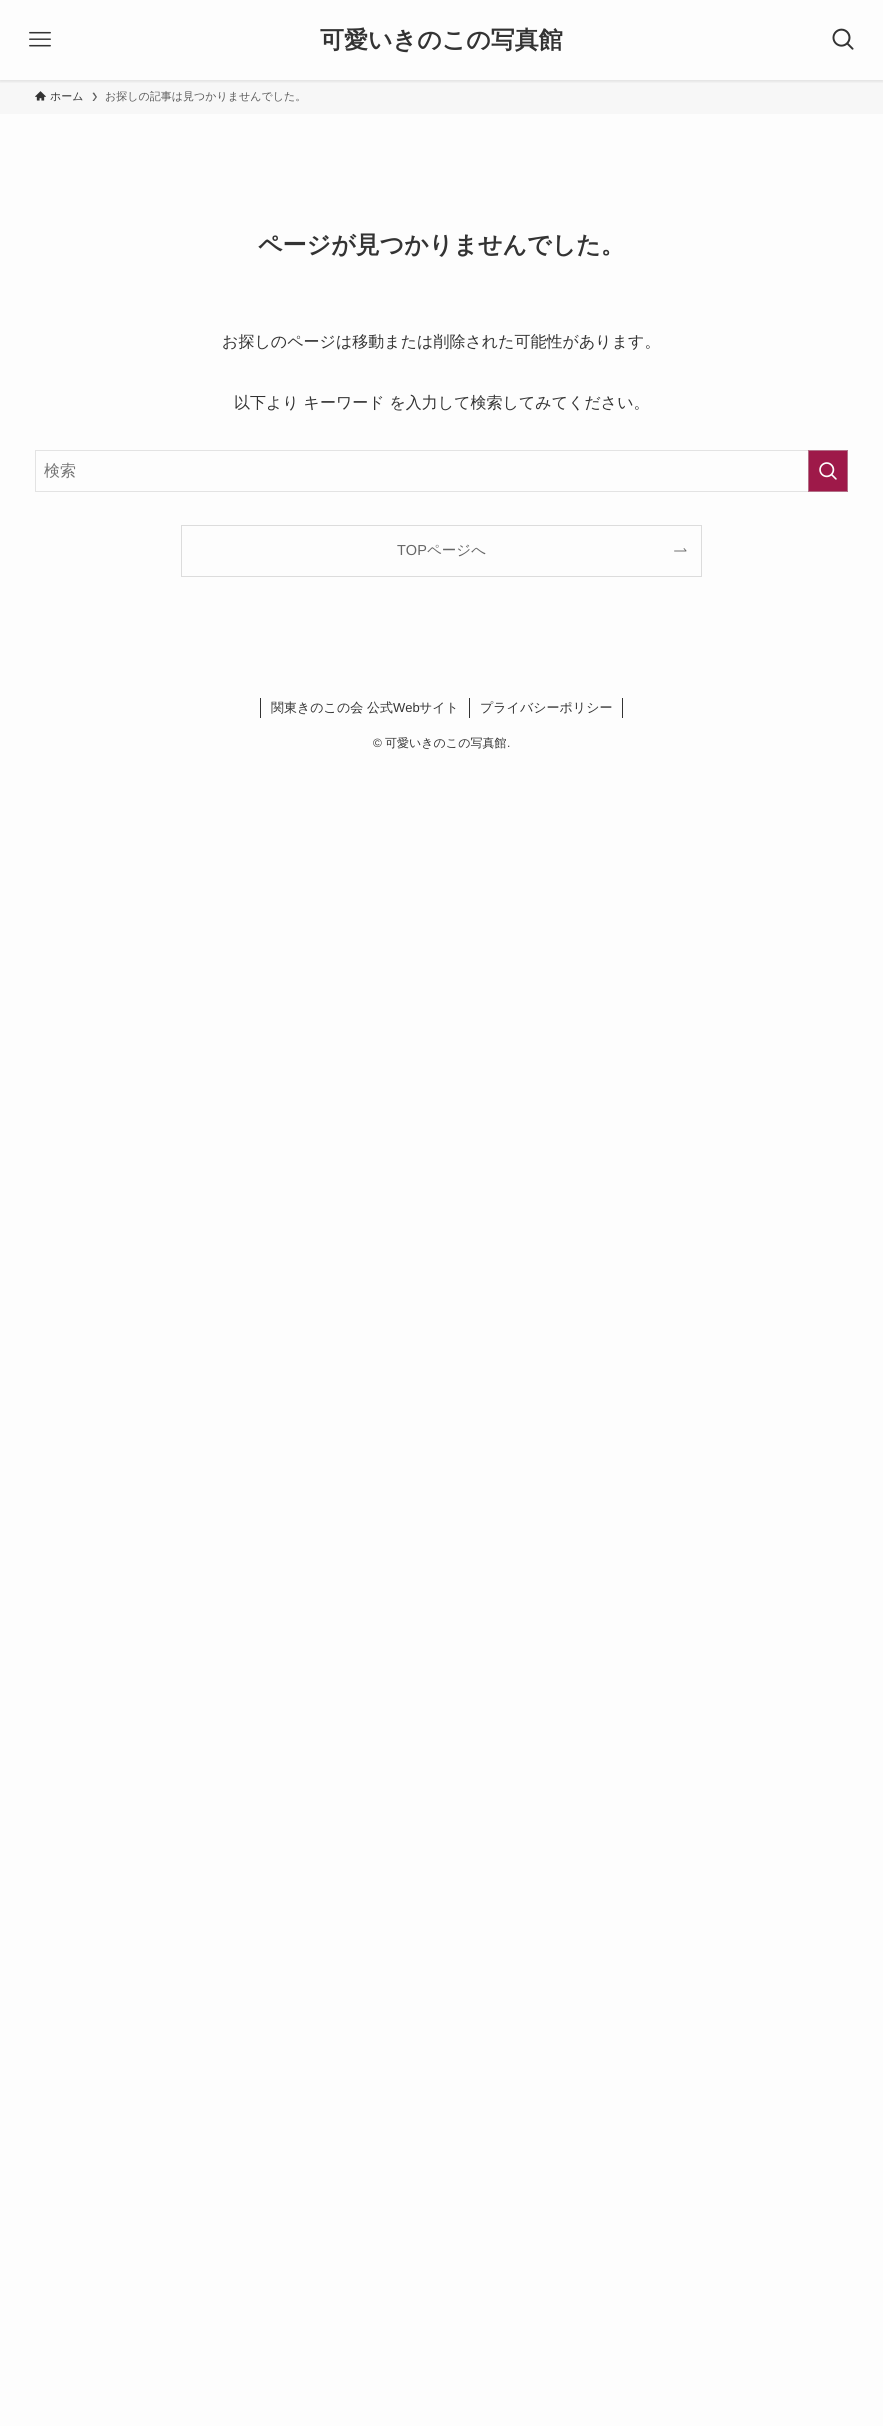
import math
import cairo

surface = cairo.ImageSurface(cairo.FORMAT_RGB24, 883, 2426)
ctx = cairo.Context(surface)
options = cairo.FontOptions()
options.set_hint_metrics(cairo.HINT_METRICS_OFF)
options.set_hint_style(cairo.HINT_STYLE_NONE)
ctx.set_font_options(options)
ctx.set_miter_limit(4)


def set_color(code):
    ctx.set_source_rgb(*(v / 255 for v in bytes.fromhex(code[-6:])))


def draw_text(x, y, s, family, size, color, bold=False, italic=False):
    ctx.select_font_face(family, cairo.FONT_SLANT_ITALIC if italic else cairo.FONT_SLANT_NORMAL, cairo.FONT_WEIGHT_BOLD if bold else cairo.FONT_WEIGHT_NORMAL)
    ctx.set_font_size(size)
    set_color(color)
    ctx.move_to(x, y)
    ctx.show_text(s)


def fill_rect(x, y, w, h, color):
    set_color(color)
    ctx.rectangle(x, y, w, h)
    ctx.fill()


def rounded_rect(x, y, w, h, r):
    ctx.new_sub_path()
    for i, (u, v) in enumerate([(x + w - r, y + h - r), (x + r, y + h - r), (x + r, y + r), (x + w - r, y + r)]):
        ctx.arc(u, v, r, i * math.pi / 2, (i + 1) * math.pi / 2)
    ctx.close_path()


def draw_shadow(x, y, w, h, r, blur, alpha):
    ctx.push_group_with_content(cairo.CONTENT_ALPHA)
    ctx.set_operator(cairo.OPERATOR_SOURCE)
    for i in range(15, -16, -2):
        e = blur * i / 6
        if min(w, h) + 2 * e > 0:
            ctx.set_source_rgba(0, 0, 0, alpha * math.erfc((i - 1) / 8.5) / 2)
            rounded_rect(x - e, y - e, w + 2 * e, h + 2 * e, max(0, min(r + e + blur * .6, min(w, h) / 2 + e)))
            ctx.fill()
    ctx.mask(ctx.pop_group())


def draw_image(path, x, y, w, h):
    ctx.save()
    ctx.set_source_surface(cairo.ImageSurface.create_from_png(path), x, y)
    ctx.rectangle(x, y, w, h)
    ctx.fill()
    ctx.restore()


set_color("#fdfdfd")
ctx.paint()
fill_rect(0, 80, 883, 34, "#f7f7f7")
ctx.save()
ctx.rectangle(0, 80, 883, 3)
ctx.clip()
set_color("#000000")
draw_shadow(0, 1, 883, 80, 0, 2, 0.12)
ctx.restore()
draw_image("assets/img1.png", 29, 31, 22, 16)
draw_text(320, 48, "可愛いきのこの写真館", "WenQuanYi Zen Hei", 24, "#333333", bold=True)
draw_image("assets/img2.png", 832, 28, 22, 22)
draw_image("assets/img3.png", 35, 91, 11, 10)
draw_text(50, 100, "ホーム", "WenQuanYi Zen Hei Medium", 11, "#333333")
set_color("#5a5a5a")
ctx.new_path()
ctx.move_to(94, 92.5)
ctx.line_to(92.5, 93)
ctx.line_to(95.5, 97)
ctx.line_to(92.5, 101)
ctx.line_to(94, 101)
ctx.line_to(97, 97)
ctx.close_path()
ctx.fill()
draw_text(105, 100, "お探しの記事は見つかりませんでした。", "WenQuanYi Zen Hei Medium", 11, "#5a5a5a")
draw_text(258, 253, "ページが見つかりませんでした。", "WenQuanYi Zen Hei", 24, "#333333", bold=True)
draw_text(222, 347, "お探しのページは移動または削除された可能性があります。", "WenQuanYi Zen Hei Medium", 16, "#333333")
draw_text(234, 408, "以下より キーワード を入力して検索してみてください。", "WenQuanYi Zen Hei Medium", 16, "#333333")
ctx.rectangle(35.5, 450.5, 812, 41)
set_color("#e3e3e3")
ctx.set_line_width(1)
ctx.stroke()
draw_text(44, 476, "検索", "WenQuanYi Zen Hei Medium", 16, "#757575")
set_color("#9e1949")
ctx.rectangle(808.5, 450.5, 39, 41)
ctx.fill_preserve()
set_color("#b37088")
ctx.stroke()
draw_image("assets/img4.png", 819, 462, 18, 18)
ctx.rectangle(181.5, 525.5, 520, 51)
set_color("#dcdcdc")
ctx.stroke()
draw_text(397, 555, "TOP", "Liberation Sans", 14.5, "#666666")
draw_text(427, 555, "ページへ", "WenQuanYi Zen Hei Medium", 14.5, "#666666")
draw_image("assets/img5.png", 674, 548, 13, 4)
fill_rect(469, 698, 1, 20, "#333333")
fill_rect(260, 698, 1, 20, "#333333")
draw_text(271, 712, "関東きのこの会 公式", "WenQuanYi Zen Hei Medium", 13, "#333333")
draw_text(393, 712, "Web", "Liberation Sans", 13, "#333333")
draw_text(419, 712, "サイト", "WenQuanYi Zen Hei Medium", 13, "#333333")
fill_rect(622, 698, 1, 20, "#333333")
draw_text(480, 712, "プライバシーポリシー", "WenQuanYi Zen Hei Medium", 13, "#333333")
draw_text(373, 747, "©", "Liberation Sans", 12, "#333333")
draw_text(385, 747, "可愛いきのこの写真館", "WenQuanYi Zen Hei Medium", 12, "#333333")
draw_text(507, 747, ".", "Liberation Sans", 12, "#333333")
surface.write_to_png("output.png")
